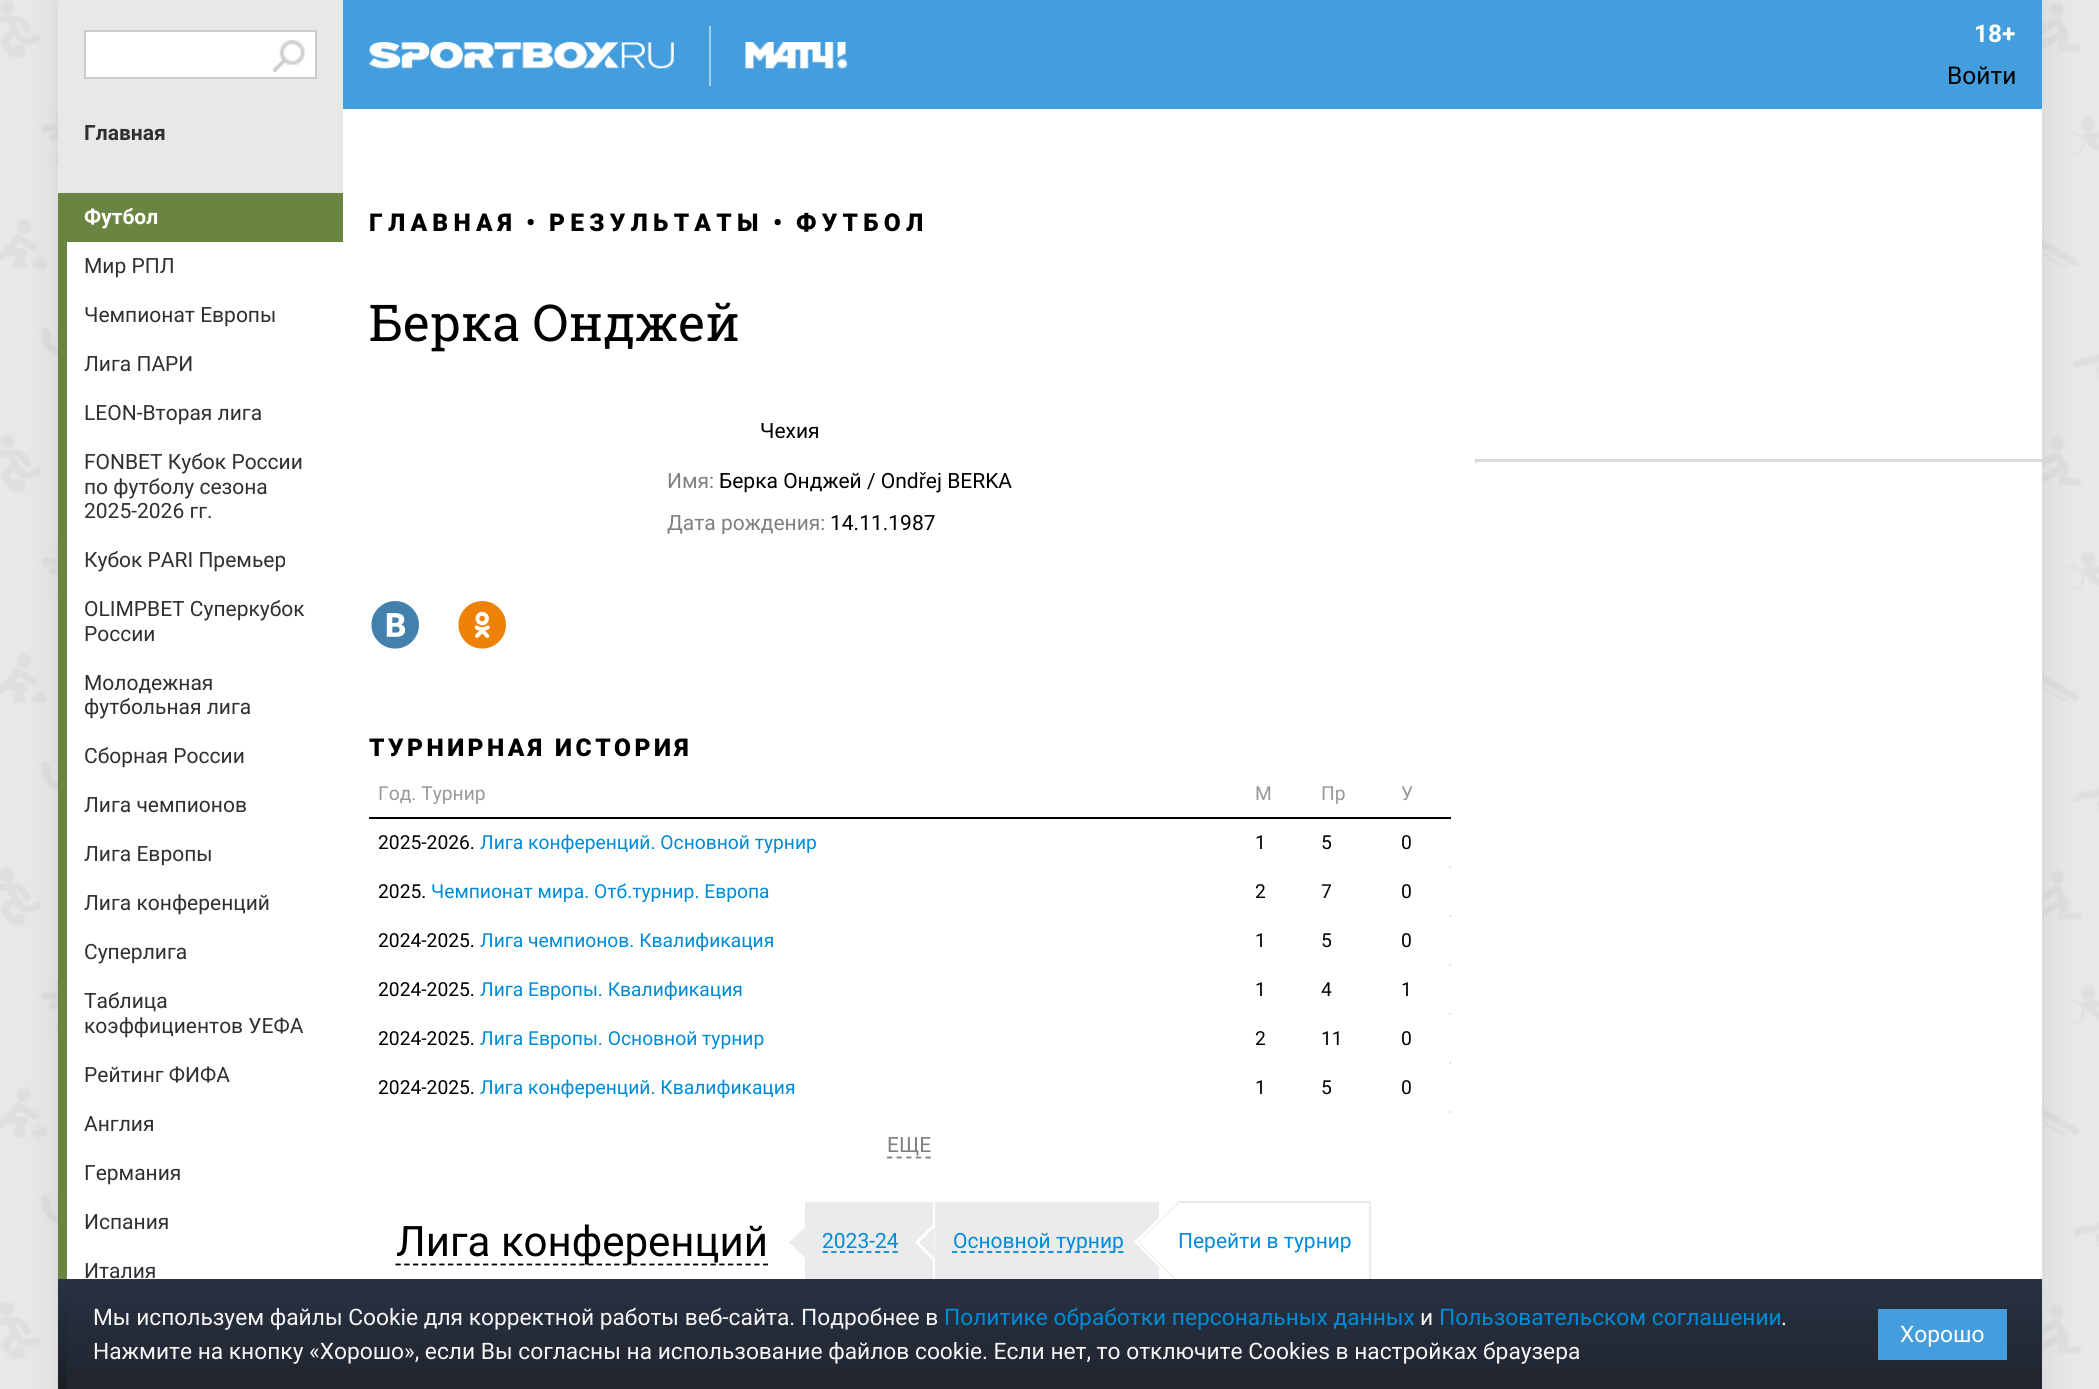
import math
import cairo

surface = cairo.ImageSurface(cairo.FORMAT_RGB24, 2099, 1389)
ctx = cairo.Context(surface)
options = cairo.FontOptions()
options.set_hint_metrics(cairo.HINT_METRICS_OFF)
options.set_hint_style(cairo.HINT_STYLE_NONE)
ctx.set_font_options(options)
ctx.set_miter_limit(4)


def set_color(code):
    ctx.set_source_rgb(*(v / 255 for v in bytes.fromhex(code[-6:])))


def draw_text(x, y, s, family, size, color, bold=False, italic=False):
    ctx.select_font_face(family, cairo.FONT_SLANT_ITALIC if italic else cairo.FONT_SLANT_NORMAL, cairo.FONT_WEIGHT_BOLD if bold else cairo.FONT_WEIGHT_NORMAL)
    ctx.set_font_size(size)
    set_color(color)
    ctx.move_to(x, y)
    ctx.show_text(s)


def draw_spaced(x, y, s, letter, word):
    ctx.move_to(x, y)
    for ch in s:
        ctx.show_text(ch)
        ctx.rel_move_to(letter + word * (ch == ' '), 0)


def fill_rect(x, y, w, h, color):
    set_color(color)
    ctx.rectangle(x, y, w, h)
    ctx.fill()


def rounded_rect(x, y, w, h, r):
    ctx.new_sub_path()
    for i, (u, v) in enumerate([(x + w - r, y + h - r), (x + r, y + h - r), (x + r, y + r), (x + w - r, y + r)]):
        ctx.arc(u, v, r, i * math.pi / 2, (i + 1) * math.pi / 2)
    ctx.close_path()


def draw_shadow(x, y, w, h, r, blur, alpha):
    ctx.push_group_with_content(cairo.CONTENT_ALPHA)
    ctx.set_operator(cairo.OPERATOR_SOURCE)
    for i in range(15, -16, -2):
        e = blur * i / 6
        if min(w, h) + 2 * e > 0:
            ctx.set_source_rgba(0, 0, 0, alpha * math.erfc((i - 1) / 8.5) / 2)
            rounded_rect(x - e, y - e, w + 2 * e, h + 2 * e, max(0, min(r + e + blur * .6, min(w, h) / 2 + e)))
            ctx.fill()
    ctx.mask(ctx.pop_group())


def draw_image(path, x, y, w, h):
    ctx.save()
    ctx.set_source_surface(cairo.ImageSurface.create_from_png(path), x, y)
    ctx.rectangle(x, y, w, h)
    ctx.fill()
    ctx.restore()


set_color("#ffffff")
ctx.paint()
draw_image("assets/img1.png", 0, 0, 2099, 1389)
set_color("#000000")
draw_shadow(58, 0, 1984, 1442, 0, 17.5, 0.1)
fill_rect(58, 0, 285, 193, "#e8e8e8")
set_color("#ffffff")
ctx.rectangle(85, 31, 231, 47)
ctx.fill_preserve()
set_color("#cccccc")
ctx.stroke()
draw_image("assets/img2.png", 272, 40, 33, 32)
fill_rect(343, 0, 1699, 109, "#449ddd")
draw_image("assets/img3.png", 369, 42, 305, 27)
fill_rect(709, 26, 2, 60, "#a2ceee")
draw_image("assets/img4.png", 745, 42, 102, 27)
draw_text(1974, 42, "18+", "Roboto", 24.5, "#ffffff", bold=True)
draw_text(1947, 84, "Войти", "Roboto", 24.5, "#000000")
draw_text(84, 140, "Главная", "Roboto", 21, "#303030", bold=True)
fill_rect(58, 193, 285, 49, "#6a8541")
draw_text(84, 224, "Футбол", "Roboto", 21, "#ffffff", bold=True)
fill_rect(58, 242, 9, 1147, "#6a8541")
fill_rect(67, 242, 276, 1147, "#ffffff")
draw_text(84, 273, "Мир РПЛ", "Roboto", 21, "#303030")
draw_text(84, 322, "Чемпионат Европы", "Roboto", 21, "#303030")
draw_text(84, 371, "Лига ПАРИ", "Roboto", 21, "#303030")
draw_text(84, 420, "LEON-Вторая лига", "Roboto", 21, "#303030")
draw_text(84, 469, "FONBET Кубок России", "Roboto", 21, "#303030")
draw_text(84, 494, "по футболу сезона", "Roboto", 21, "#303030")
draw_text(84, 518, "2025-2026 гг.", "Roboto", 21, "#303030")
draw_text(84, 567, "Кубок PARI Премьер", "Roboto", 21, "#303030")
draw_text(84, 616, "OLIMPBET Суперкубок", "Roboto", 21, "#303030")
draw_text(84, 641, "России", "Roboto", 21, "#303030")
draw_text(84, 690, "Молодежная", "Roboto", 21, "#303030")
draw_text(84, 714, "футбольная лига", "Roboto", 21, "#303030")
draw_text(84, 763, "Сборная России", "Roboto", 21, "#303030")
draw_text(84, 812, "Лига чемпионов", "Roboto", 21, "#303030")
draw_text(84, 861, "Лига Европы", "Roboto", 21, "#303030")
draw_text(84, 910, "Лига конференций", "Roboto", 21, "#303030")
draw_text(84, 959, "Суперлига", "Roboto", 21, "#303030")
draw_text(84, 1008, "Таблица", "Roboto", 21, "#303030")
draw_text(84, 1033, "коэффициентов УЕФА", "Roboto", 21, "#303030")
draw_text(84, 1082, "Рейтинг ФИФА", "Roboto", 21, "#303030")
draw_text(84, 1131, "Англия", "Roboto", 21, "#303030")
draw_text(84, 1180, "Германия", "Roboto", 21, "#303030")
draw_text(84, 1229, "Испания", "Roboto", 21, "#303030")
draw_text(84, 1278, "Италия", "Roboto", 21, "#303030")
fill_rect(343, 109, 1699, 1280, "#ffffff")
ctx.select_font_face("Roboto Black")
ctx.set_font_size(24.5)
set_color("#000000")
draw_spaced(369, 231, "ГЛАВНАЯ", 5.25, 0)
draw_text(526, 231, "•", "Roboto Black", 24.5, "#000000")
draw_spaced(549, 231, "РЕЗУЛЬТАТЫ", 5.25, 0)
draw_text(773, 231, "•", "Roboto Black", 24.5, "#000000")
draw_spaced(796, 231, "ФУТБОЛ", 5.25, 0)
draw_text(369, 341, "Берка Онджей", "Roboto Slab", 50.75, "#000000")
draw_text(760, 438, "Чехия", "Roboto", 21, "#000000")
draw_text(667, 488, "Имя:", "Roboto", 21, "#808080")
draw_text(719, 488, "Берка Онджей / Ondřej BERKA", "Roboto", 21, "#000000")
draw_text(667, 530, "Дата рождения:", "Roboto", 21, "#808080")
draw_text(830, 530, "14.11.1987", "Roboto", 21, "#000000")
draw_text(369, 651, "R", "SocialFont", 56, "#4380ac")
draw_text(456, 651, "Y", "SocialFont", 56, "#ed8207")
ctx.select_font_face("Roboto Black")
ctx.set_font_size(24.5)
set_color("#000000")
draw_spaced(369, 756, "ТУРНИРНАЯ ИСТОРИЯ", 3.5, 0)
draw_text(378, 800, "Год. Турнир", "Roboto", 19.25, "#999999")
draw_text(1255, 800, "М", "Roboto", 19.25, "#999999")
draw_text(1321, 800, "Пр", "Roboto", 19.25, "#999999")
fill_rect(369, 817, 1082, 2, "#000000")
draw_text(1401, 800, "У", "Roboto", 19.25, "#999999")
fill_rect(1449, 866, 2, 2, "#e5e5e5")
draw_text(378, 849, "2025-2026.", "Roboto", 19.25, "#000000")
draw_text(480, 849, "Лига конференций. Основной турнир", "Roboto", 19.25, "#008bd7")
draw_text(1255, 849, "1", "Roboto", 19.25, "#000000")
draw_text(1321, 849, "5", "Roboto", 19.25, "#000000")
draw_text(1401, 849, "0", "Roboto", 19.25, "#000000")
fill_rect(1449, 915, 2, 2, "#e5e5e5")
draw_text(378, 898, "2025.", "Roboto", 19.25, "#000000")
draw_text(431, 898, "Чемпионат мира. Отб.турнир. Европа", "Roboto", 19.25, "#008bd7")
draw_text(1255, 898, "2", "Roboto", 19.25, "#000000")
draw_text(1321, 898, "7", "Roboto", 19.25, "#000000")
draw_text(1401, 898, "0", "Roboto", 19.25, "#000000")
fill_rect(1449, 964, 2, 2, "#e5e5e5")
draw_text(378, 947, "2024-2025.", "Roboto", 19.25, "#000000")
draw_text(480, 947, "Лига чемпионов. Квалификация", "Roboto", 19.25, "#008bd7")
draw_text(1255, 947, "1", "Roboto", 19.25, "#000000")
draw_text(1321, 947, "5", "Roboto", 19.25, "#000000")
draw_text(1401, 947, "0", "Roboto", 19.25, "#000000")
fill_rect(1449, 1013, 2, 2, "#e5e5e5")
draw_text(378, 996, "2024-2025.", "Roboto", 19.25, "#000000")
draw_text(480, 996, "Лига Европы. Квалификация", "Roboto", 19.25, "#008bd7")
draw_text(1255, 996, "1", "Roboto", 19.25, "#000000")
draw_text(1321, 996, "4", "Roboto", 19.25, "#000000")
draw_text(1401, 996, "1", "Roboto", 19.25, "#000000")
fill_rect(1449, 1062, 2, 2, "#e5e5e5")
draw_text(378, 1045, "2024-2025.", "Roboto", 19.25, "#000000")
draw_text(480, 1045, "Лига Европы. Основной турнир", "Roboto", 19.25, "#008bd7")
draw_text(1255, 1045, "2", "Roboto", 19.25, "#000000")
draw_text(1321, 1045, "11", "Roboto", 19.25, "#000000")
draw_text(1401, 1045, "0", "Roboto", 19.25, "#000000")
fill_rect(1449, 1111, 2, 2, "#e5e5e5")
draw_text(378, 1094, "2024-2025.", "Roboto", 19.25, "#000000")
draw_text(480, 1094, "Лига конференций. Квалификация", "Roboto", 19.25, "#008bd7")
draw_text(1255, 1094, "1", "Roboto", 19.25, "#000000")
draw_text(1321, 1094, "5", "Roboto", 19.25, "#000000")
draw_text(1401, 1094, "0", "Roboto", 19.25, "#000000")
draw_text(887, 1152, "ЕЩЕ", "Roboto", 21, "#808080")
ctx.new_path()
ctx.move_to(887, 1157.5)
ctx.line_to(931, 1157.5)
ctx.set_line_width(1.8)
ctx.set_dash([5.25, 4.38])
ctx.stroke()
ctx.new_path()
ctx.move_to(395.5, 1264.5)
ctx.line_to(768, 1264.5)
set_color("#000000")
ctx.set_dash([5.25, 3.5])
ctx.stroke()
draw_text(396, 1256, "Лига конференций", "Roboto", 42, "#000000")
set_color("#ebebeb")
ctx.new_path()
ctx.move_to(805, 1227)
ctx.line_to(805, 1258)
ctx.line_to(789, 1242.5)
ctx.close_path()
ctx.fill()
fill_rect(805, 1202, 128, 77, "#ebebeb")
ctx.new_path()
ctx.move_to(822.5, 1252)
ctx.line_to(898, 1252)
set_color("#008bd7")
ctx.stroke()
draw_text(822, 1248, "2023-24", "Roboto", 21, "#008bd7")
set_color("#ffffff")
ctx.new_path()
ctx.move_to(934.5, 1223)
ctx.line_to(934.5, 1262)
ctx.line_to(915, 1242.5)
ctx.close_path()
ctx.fill()
set_color("#ebebeb")
ctx.new_path()
ctx.move_to(934.5, 1227)
ctx.line_to(934.5, 1258)
ctx.line_to(919, 1242.5)
ctx.close_path()
ctx.fill()
fill_rect(935, 1202, 224, 77, "#ebebeb")
ctx.new_path()
ctx.move_to(952, 1252)
ctx.line_to(1123.5, 1252)
set_color("#008bd7")
ctx.stroke()
draw_text(953, 1248, "Основной турнир", "Roboto", 21, "#008bd7")
set_color("#ffffff")
ctx.new_path()
ctx.move_to(1178, 1199)
ctx.line_to(1178, 1286)
ctx.line_to(1134, 1242)
ctx.close_path()
ctx.fill()
fill_rect(1178, 1201, 192, 2, "#ebebeb")
fill_rect(1369, 1201, 2, 82, "#ebebeb")
ctx.new_path()
ctx.move_to(1178, 1202)
ctx.line_to(1178, 1283)
ctx.line_to(1138, 1242)
ctx.close_path()
ctx.fill()
set_color("#ffffff")
ctx.new_path()
ctx.move_to(1178, 1204)
ctx.line_to(1178, 1281)
ctx.line_to(1139, 1242)
ctx.close_path()
ctx.fill()
draw_text(1178, 1248, "Перейти в турнир", "Roboto", 21, "#008bd7")
fill_rect(1475, 459, 567, 3, "#d9d9d9")
fill_rect(1475, 459, 2, 4, "#d9d9d9")
gradient = cairo.LinearGradient(1050, 1279, 1050, 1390)
gradient.add_color_stop_rgba(0, 0.157, 0.196, 0.267, 1)
gradient.add_color_stop_rgba(1, 0.082, 0.102, 0.137, 0.95)
ctx.set_source(gradient)
ctx.rectangle(58, 1279, 1984, 110)
ctx.fill()
draw_text(93, 1325, "Мы используем файлы Сookie для корректной работы веб-сайта. Подробнее в", "Roboto", 22.75, "#f5f5f5")
draw_text(944, 1325, "Политике обработки персональных данных", "Roboto", 22.75, "#008bd7")
draw_text(1420, 1325, "и", "Roboto", 22.75, "#f5f5f5")
draw_text(1439, 1325, "Пользовательском соглашении", "Roboto", 22.75, "#008bd7")
draw_text(1781, 1325, ".", "Roboto", 22.75, "#f5f5f5")
draw_text(93, 1359, "Нажмите на кнопку «Хорошо», если Вы согласны на использование файлов cookie. Если нет, то отключите Cookies в настройках браузера", "Roboto", 22.75, "#f5f5f5")
fill_rect(1878, 1309, 129, 51, "#449ddd")
draw_text(1900, 1342, "Хорошо", "Roboto", 22.75, "#ffffff")
surface.write_to_png("output.png")
